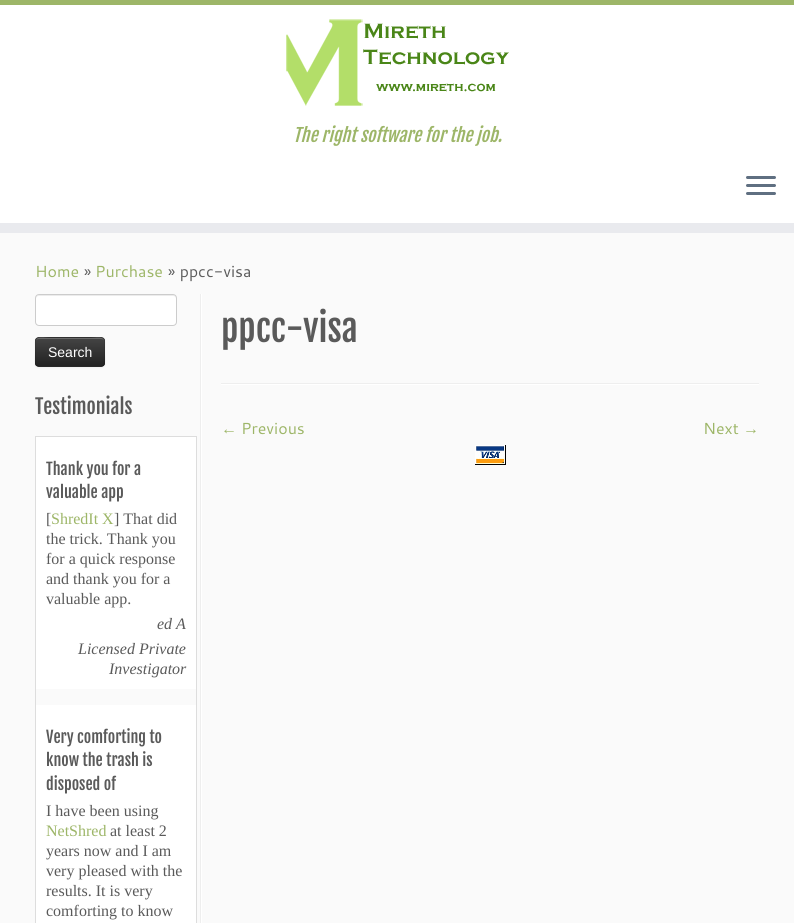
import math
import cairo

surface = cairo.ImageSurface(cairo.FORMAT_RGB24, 794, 923)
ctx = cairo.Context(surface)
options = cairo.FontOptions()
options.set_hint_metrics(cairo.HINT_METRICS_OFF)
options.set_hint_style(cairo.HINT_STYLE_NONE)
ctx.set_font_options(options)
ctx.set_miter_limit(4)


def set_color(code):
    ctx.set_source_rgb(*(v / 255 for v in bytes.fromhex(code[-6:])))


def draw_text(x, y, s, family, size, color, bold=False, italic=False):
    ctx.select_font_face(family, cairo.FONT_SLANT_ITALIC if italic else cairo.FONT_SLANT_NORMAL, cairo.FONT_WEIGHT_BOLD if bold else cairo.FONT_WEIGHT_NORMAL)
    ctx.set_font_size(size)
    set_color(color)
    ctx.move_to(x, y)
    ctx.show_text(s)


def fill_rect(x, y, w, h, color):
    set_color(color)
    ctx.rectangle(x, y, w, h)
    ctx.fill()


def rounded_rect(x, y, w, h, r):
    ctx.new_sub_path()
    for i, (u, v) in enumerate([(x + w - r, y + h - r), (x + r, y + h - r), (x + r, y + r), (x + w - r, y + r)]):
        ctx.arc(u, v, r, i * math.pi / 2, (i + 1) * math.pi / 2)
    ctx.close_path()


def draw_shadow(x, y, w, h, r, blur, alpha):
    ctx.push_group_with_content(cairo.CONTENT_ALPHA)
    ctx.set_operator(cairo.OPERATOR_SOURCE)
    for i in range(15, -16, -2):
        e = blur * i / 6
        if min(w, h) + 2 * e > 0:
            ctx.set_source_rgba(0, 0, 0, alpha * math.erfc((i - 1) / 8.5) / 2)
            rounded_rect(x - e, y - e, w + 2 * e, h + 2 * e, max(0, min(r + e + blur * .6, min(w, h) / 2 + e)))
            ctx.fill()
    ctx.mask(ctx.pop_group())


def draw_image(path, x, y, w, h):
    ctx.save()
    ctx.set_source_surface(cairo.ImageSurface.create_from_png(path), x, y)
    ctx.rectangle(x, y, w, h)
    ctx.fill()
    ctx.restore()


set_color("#fafafa")
ctx.paint()
fill_rect(0, 5, 794, 218, "#ffffff")
fill_rect(0, 0, 794, 5, "#9db668")
fill_rect(0, 223, 794, 10, "#e9eaee")
draw_image("assets/img1.png", 286, 19, 223, 87)
draw_text(293, 142, "The right software for the job.", "Fjalla One", 18, "#9db668", italic=True)
set_color("#5f6f81")
rounded_rect(746, 176, 30, 3, 1.5)
ctx.fill()
rounded_rect(746, 184, 30, 3, 1.5)
ctx.fill()
rounded_rect(746, 192, 30, 3, 1.5)
ctx.fill()
draw_text(35, 277, "Home", "Cantarell", 16, "#9db668")
draw_text(84, 277, "»", "Cantarell", 16, "#5a5a5a")
draw_text(95, 277, "Purchase", "Cantarell", 16, "#9db668")
draw_text(168, 277, "» ppcc-visa", "Cantarell", 16, "#5a5a5a")
fill_rect(200, 294, 1, 629, "#eeeeee")
set_color("#ffffff")
rounded_rect(35, 294, 142, 32, 4)
ctx.fill()
set_color("#ececec")
ctx.new_path()
ctx.move_to(39, 296)
ctx.line_to(173, 296)
ctx.curve_to(175, 296, 176, 297, 176, 299)
ctx.line_to(176, 298)
ctx.curve_to(176, 296, 175, 295, 173, 295)
ctx.line_to(39, 295)
ctx.curve_to(37, 295, 36, 296, 36, 298)
ctx.line_to(36, 299)
ctx.curve_to(36, 297, 37, 296, 39, 296)
ctx.close_path()
ctx.fill()
rounded_rect(35.5, 294.5, 141, 31, 3.5)
set_color("#cccccc")
ctx.set_line_width(1)
ctx.stroke()
set_color("#000000")
draw_shadow(35, 338, 70, 30, 4, 1, 0.05)
set_color("#363636")
rounded_rect(35, 337, 70, 30, 4)
ctx.fill()
ctx.save()
rounded_rect(35, 337, 70, 30, 4)
ctx.clip()
gradient = cairo.LinearGradient(70, 338, 70, 366)
gradient.add_color_stop_rgba(0, 0.267, 0.267, 0.267, 1)
gradient.add_color_stop_rgba(1, 0.133, 0.133, 0.133, 1)
ctx.set_source(gradient)
ctx.rectangle(35, 338, 70, 28)
ctx.fill()
ctx.restore()
ctx.set_source_rgba(1, 1, 1, 0.2)
ctx.new_path()
ctx.move_to(39, 339)
ctx.line_to(101, 339)
ctx.curve_to(103, 339, 104, 340, 104, 342)
ctx.curve_to(104, 335, 95, 338, 91, 338)
ctx.line_to(49, 338)
ctx.curve_to(45, 338, 36, 335, 36, 342)
ctx.curve_to(36, 340, 37, 339, 39, 339)
ctx.close_path()
ctx.fill()
ctx.new_path()
ctx.move_to(103.5, 365.5)
ctx.line_to(101.5, 366.5)
ctx.line_to(38.5, 366.5)
ctx.line_to(36.5, 365.5)
ctx.set_source_rgba(0, 0, 0, 0.25)
ctx.stroke()
ctx.new_path()
ctx.move_to(36.5, 365.5)
ctx.curve_to(34.5, 363.5, 35.5, 355, 35.5, 352)
ctx.curve_to(35.5, 336, 33, 337.5, 49.5, 337.5)
ctx.line_to(90.5, 337.5)
ctx.curve_to(107, 337.5, 104.5, 336, 104.5, 352)
ctx.curve_to(104.5, 355, 105.5, 363.5, 103.5, 365.5)
ctx.set_source_rgba(0, 0, 0, 0.1)
ctx.stroke()
draw_text(48, 357, "Search", "Liberation Sans", 14, "#ffffff")
fill_rect(201, 294, 1, 629, "#ffffff")
draw_text(35, 414, "Testimonials", "Fjalla One", 20, "#5a5a5a")
ctx.rectangle(35.5, 436.5, 161, 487)
set_color("#dddddd")
ctx.stroke()
fill_rect(36, 437, 160, 252, "#ffffff")
draw_text(46, 475, "Thank you for a", "Fjalla One", 16, "#5a5a5a")
draw_text(46, 498, "valuable app", "Fjalla One", 16, "#5a5a5a")
draw_text(46, 524, "[", "Liberation Serif", 16, "#5a5a5a")
draw_text(51, 524, "ShredIt X", "Liberation Serif", 16, "#9db668")
draw_text(114, 524, "] That did", "Liberation Serif", 16, "#5a5a5a")
draw_text(46, 544, "the trick. Thank you", "Liberation Serif", 16, "#5a5a5a")
draw_text(46, 564, "for a quick response", "Liberation Serif", 16, "#5a5a5a")
draw_text(46, 584, "and thank you for a", "Liberation Serif", 16, "#5a5a5a")
draw_text(46, 604, "valuable app.", "Liberation Serif", 16, "#5a5a5a")
draw_text(157, 629, "ed A", "Liberation Serif", 16, "#5a5a5a", italic=True)
draw_text(78, 654, "Licensed Private", "Liberation Serif", 16, "#5a5a5a", italic=True)
draw_text(109, 674, "Investigator", "Liberation Serif", 16, "#5a5a5a", italic=True)
fill_rect(36, 705, 160, 218, "#ffffff")
draw_text(46, 743, "Very comforting to", "Fjalla One", 16, "#5a5a5a")
draw_text(46, 766, "know the trash is", "Fjalla One", 16, "#5a5a5a")
draw_text(46, 790, "disposed of", "Fjalla One", 16, "#5a5a5a")
draw_text(46, 816, "I have been using", "Liberation Serif", 16, "#5a5a5a")
draw_text(46, 836, "NetShred", "Liberation Serif", 16, "#9db668")
draw_text(110, 836, "at least 2", "Liberation Serif", 16, "#5a5a5a")
draw_text(46, 856, "years now and I am", "Liberation Serif", 16, "#5a5a5a")
draw_text(46, 876, "very pleased with the", "Liberation Serif", 16, "#5a5a5a")
draw_text(46, 896, "results. It is very", "Liberation Serif", 16, "#5a5a5a")
draw_text(46, 916, "comforting to know", "Liberation Serif", 16, "#5a5a5a")
draw_text(221, 342, "ppcc-visa", "Fjalla One", 36, "#5a5a5a")
fill_rect(221, 383, 538, 1, "#eeeeee")
fill_rect(221, 384, 538, 1, "#ffffff")
draw_text(221, 434, "←", "Liberation Serif", 16, "#9db668")
draw_text(241, 434, "Previous", "Cantarell", 16, "#9db668")
draw_text(703, 434, "Next", "Cantarell", 16, "#9db668")
draw_text(743, 434, "→", "Liberation Serif", 16, "#9db668")
draw_image("assets/img2.png", 475, 445, 31, 20)
surface.write_to_png("output.png")
